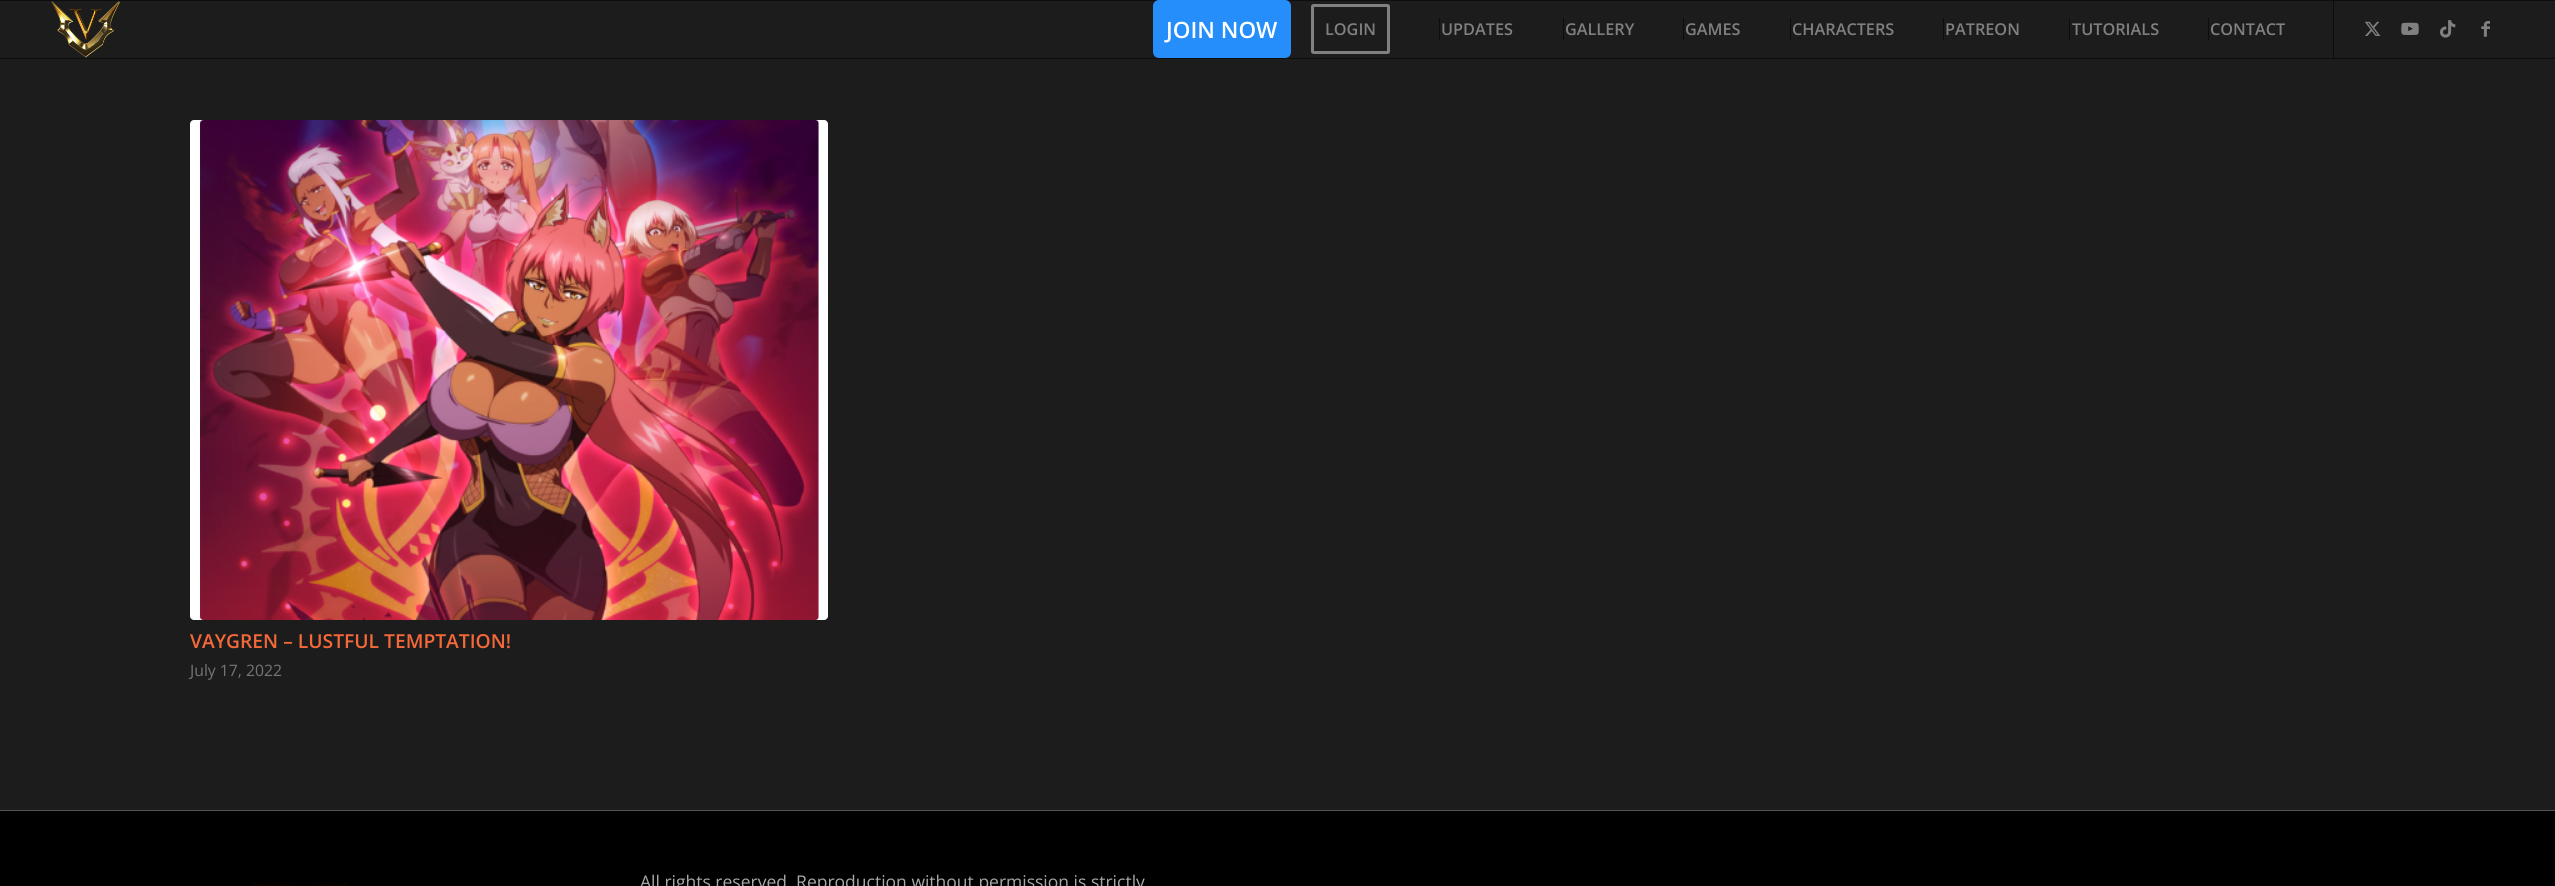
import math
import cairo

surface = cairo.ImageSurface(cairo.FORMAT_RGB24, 2555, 886)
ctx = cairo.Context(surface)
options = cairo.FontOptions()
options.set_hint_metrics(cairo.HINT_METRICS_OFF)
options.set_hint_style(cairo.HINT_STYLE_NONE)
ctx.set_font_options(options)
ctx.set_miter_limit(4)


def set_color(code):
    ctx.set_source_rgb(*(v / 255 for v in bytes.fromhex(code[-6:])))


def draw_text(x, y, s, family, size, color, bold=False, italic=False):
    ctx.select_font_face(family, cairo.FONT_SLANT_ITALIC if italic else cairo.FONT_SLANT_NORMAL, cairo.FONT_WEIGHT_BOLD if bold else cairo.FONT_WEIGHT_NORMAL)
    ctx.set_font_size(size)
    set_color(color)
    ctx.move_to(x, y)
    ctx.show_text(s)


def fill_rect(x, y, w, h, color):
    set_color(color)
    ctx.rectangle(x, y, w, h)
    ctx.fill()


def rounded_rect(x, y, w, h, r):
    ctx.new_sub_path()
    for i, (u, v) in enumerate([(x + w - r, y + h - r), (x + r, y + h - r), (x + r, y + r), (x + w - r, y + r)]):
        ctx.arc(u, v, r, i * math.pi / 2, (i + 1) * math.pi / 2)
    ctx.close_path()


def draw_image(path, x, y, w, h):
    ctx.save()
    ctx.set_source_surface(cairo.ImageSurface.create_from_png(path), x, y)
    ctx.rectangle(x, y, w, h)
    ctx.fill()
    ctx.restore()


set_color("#1c1c1c")
ctx.paint()
fill_rect(0, 0, 2555, 1, "#0d0d0d")
fill_rect(0, 58, 2555, 1, "#0d0d0d")
draw_image("assets/img1.png", 51, 1, 69, 57)
fill_rect(2333, 1, 1, 57, "#0d0d0d")
set_color("#258efb")
rounded_rect(1154.5, 1.5, 135, 55, 4.5)
ctx.fill_preserve()
ctx.set_line_width(3)
ctx.stroke()
draw_text(1166, 38, "JOIN NOW", "Open Sans SemiBold", 22.5, "#ffffff")
rounded_rect(1312.5, 5.5, 76, 47, 1)
set_color("#808080")
ctx.stroke()
draw_text(1325, 35, "LOGIN", "Open Sans SemiBold", 16.25, "#808080")
draw_text(1441, 35, "UPDATES", "Open Sans SemiBold", 16.25, "#808080")
fill_rect(1439, 18, 1, 22, "#0d0d0d")
draw_text(1565, 35, "GALLERY", "Open Sans SemiBold", 16.25, "#808080")
fill_rect(1563, 18, 1, 22, "#0d0d0d")
draw_text(1685, 35, "GAMES", "Open Sans SemiBold", 16.25, "#808080")
fill_rect(1683, 18, 1, 22, "#0d0d0d")
draw_text(1792, 35, "CHARACTERS", "Open Sans SemiBold", 16.25, "#808080")
fill_rect(1790, 18, 1, 22, "#0d0d0d")
draw_text(1945, 35, "PATREON", "Open Sans SemiBold", 16.25, "#808080")
fill_rect(1943, 18, 1, 22, "#0d0d0d")
draw_text(2072, 35, "TUTORIALS", "Open Sans SemiBold", 16.25, "#808080")
fill_rect(2069, 18, 1, 22, "#0d0d0d")
draw_text(2210, 35, "CONTACT", "Open Sans SemiBold", 16.25, "#808080")
fill_rect(2208, 18, 1, 22, "#0d0d0d")
draw_image("assets/img2.png", 2364, 21, 17, 15)
draw_image("assets/img3.png", 2401, 22, 18, 13)
draw_image("assets/img4.png", 2440, 20, 16, 18)
draw_image("assets/img5.png", 2481, 21, 9, 16)
set_color("#ffffff")
rounded_rect(190, 120, 638, 500, 4)
ctx.fill()
draw_image("assets/img6.png", 200, 120, 619, 500)
draw_text(190, 648, "VAYGREN – LUSTFUL TEMPTATION!", "Open Sans SemiBold", 19.25, "#f56839")
draw_text(190, 676, "July 17, 2022", "Open Sans", 15.75, "#757575")
fill_rect(0, 811, 2555, 75, "#000000")
fill_rect(0, 810, 2555, 1, "#555555")
draw_image("assets/img7.png", 252, 883, 97, 3)
draw_text(640, 888, "All rights reserved. Reproduction without permission is strictly", "Open Sans", 17.5, "#aaaaaa")
surface.write_to_png("output.png")
